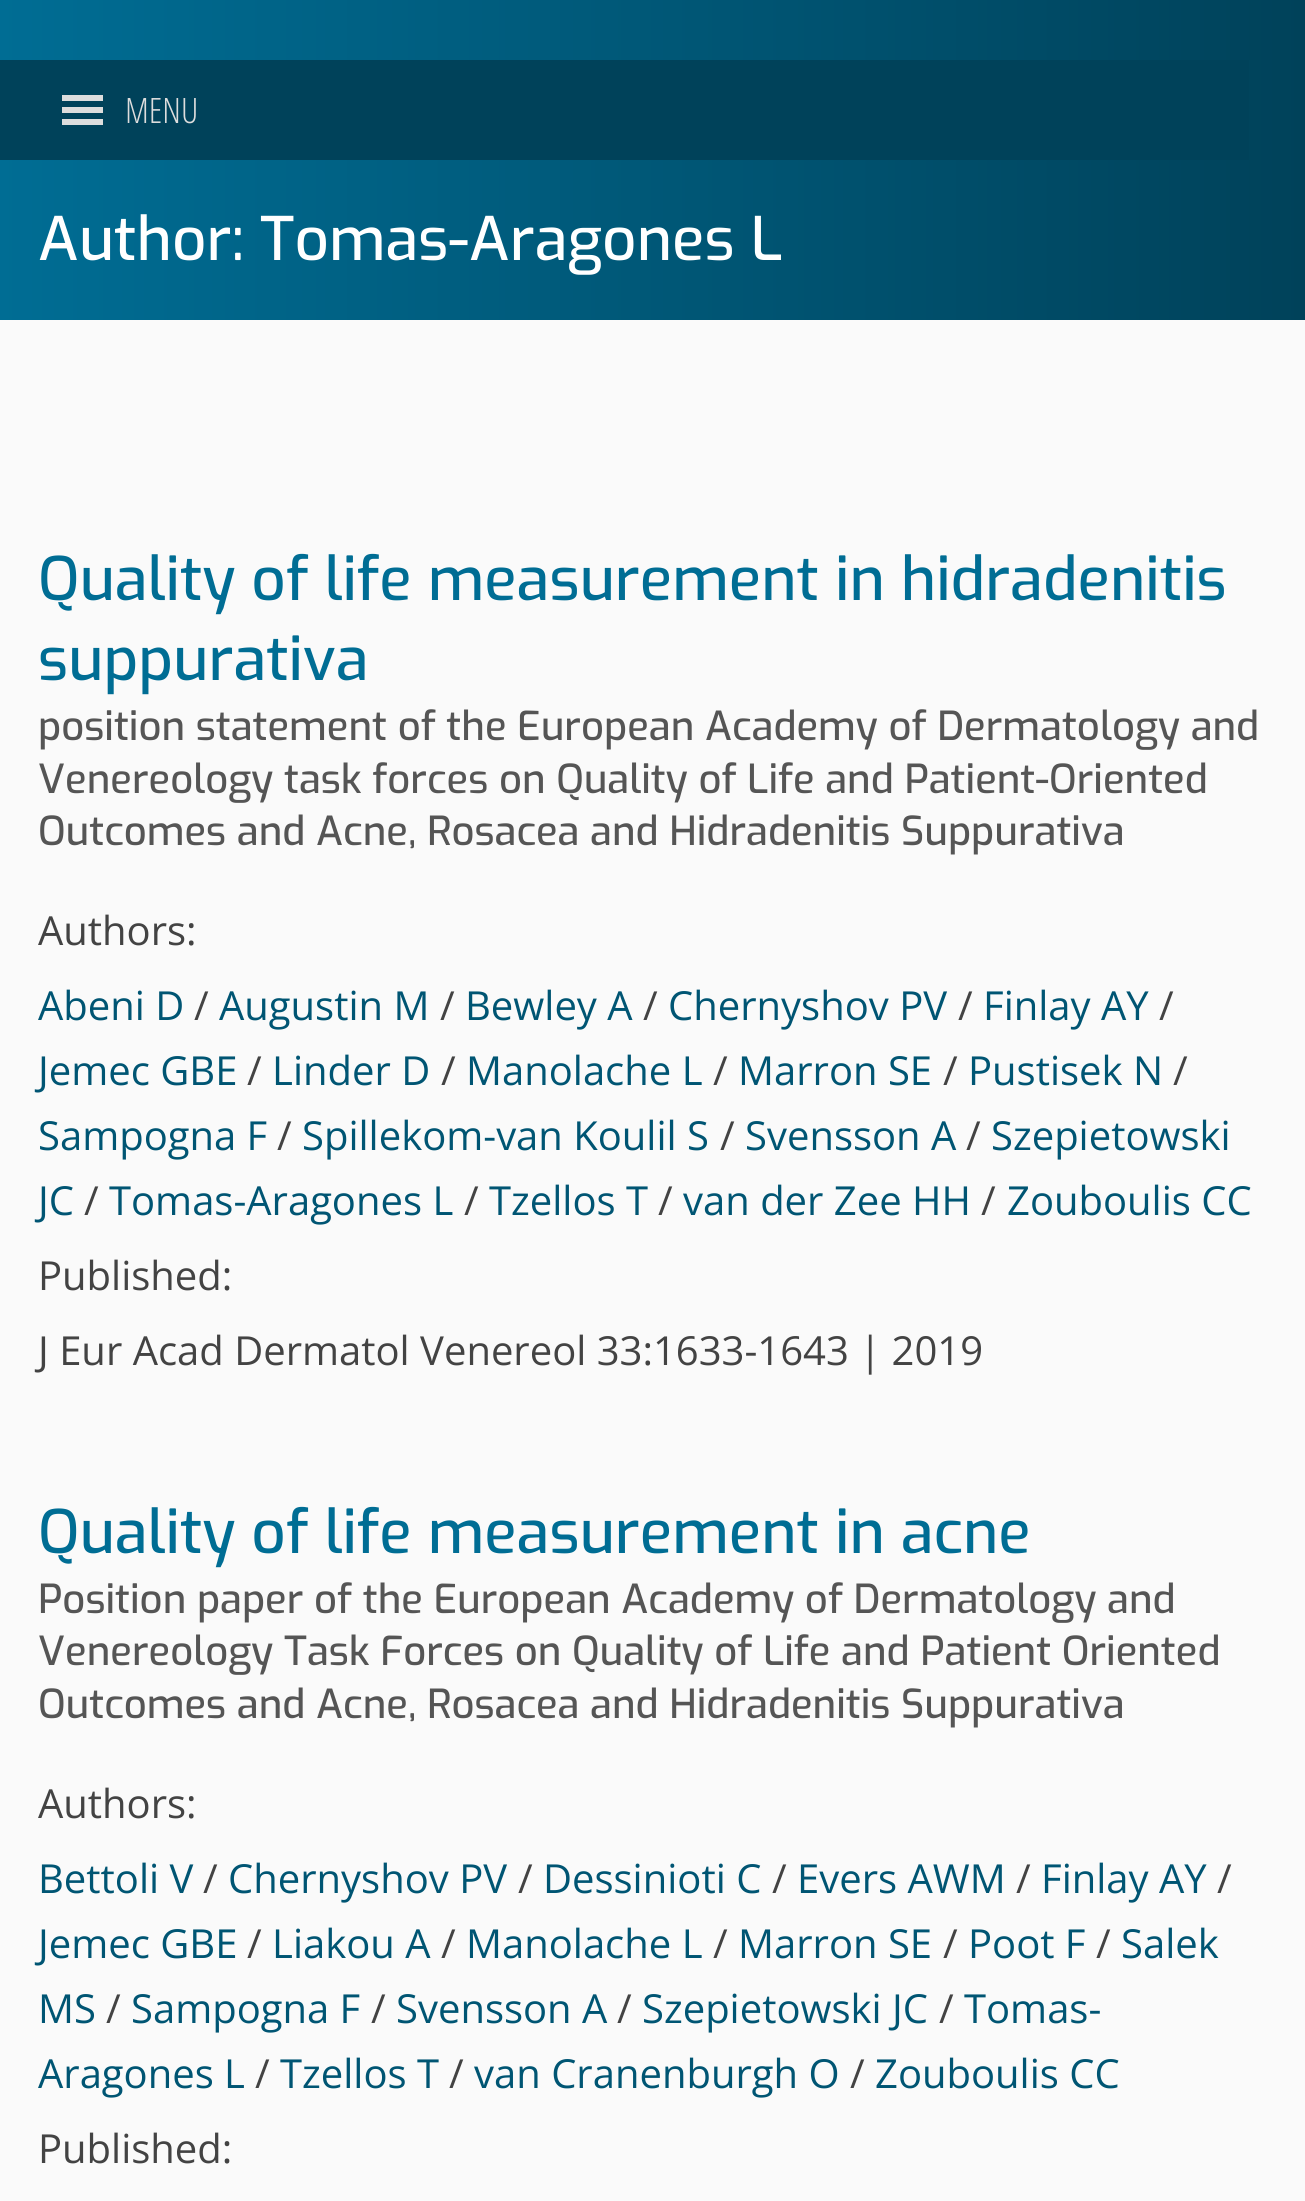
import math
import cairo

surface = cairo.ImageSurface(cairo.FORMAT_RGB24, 1305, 2201)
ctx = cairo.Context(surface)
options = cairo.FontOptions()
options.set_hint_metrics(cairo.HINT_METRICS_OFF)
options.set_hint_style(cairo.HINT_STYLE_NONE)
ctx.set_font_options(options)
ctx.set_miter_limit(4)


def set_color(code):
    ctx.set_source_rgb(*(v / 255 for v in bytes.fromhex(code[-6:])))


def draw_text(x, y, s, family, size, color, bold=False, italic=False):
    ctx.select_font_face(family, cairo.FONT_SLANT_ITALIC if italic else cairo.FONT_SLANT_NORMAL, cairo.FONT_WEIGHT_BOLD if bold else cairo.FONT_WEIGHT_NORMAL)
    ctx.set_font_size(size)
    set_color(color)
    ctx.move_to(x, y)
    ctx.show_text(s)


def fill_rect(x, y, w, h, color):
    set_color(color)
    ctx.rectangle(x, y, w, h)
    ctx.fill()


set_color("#fafafa")
ctx.paint()
gradient = cairo.LinearGradient(0, 160, 1305, 160)
gradient.add_color_stop_rgba(0, 0, 0.427, 0.58, 1)
gradient.add_color_stop_rgba(1, 0, 0.259, 0.353, 1)
ctx.set_source(gradient)
ctx.rectangle(0, 0, 1305, 320)
ctx.fill()
fill_rect(0, 60, 1249, 100, "#00425a")
set_color("#dddddd")
ctx.new_path()
ctx.move_to(62, 125)
ctx.line_to(103, 125)
ctx.line_to(103, 119)
ctx.line_to(62, 119)
ctx.close_path()
ctx.move_to(62, 95)
ctx.line_to(62, 101)
ctx.line_to(103, 101)
ctx.line_to(103, 95)
ctx.close_path()
ctx.move_to(62, 113)
ctx.line_to(103, 113)
ctx.line_to(103, 107)
ctx.line_to(62, 107)
ctx.close_path()
ctx.fill()
draw_text(125, 123, "MENU", "Open Sans Condensed Light", 35, "#dddddd")
draw_text(38, 260, "Author: Tomas-Aragones L", "Exo Medium", 60, "#ffffff")
draw_text(38, 600, "Quality of life measurement in hidradenitis", "Exo Medium", 60, "#006d94")
draw_text(38, 680, "suppurativa", "Exo Medium", 60, "#006d94")
draw_text(38, 740, "position statement of the European Academy of Dermatology and", "Exo Medium", 40, "#555555")
draw_text(38, 793, "Venereology task forces on Quality of Life and Patient-Oriented", "Exo Medium", 40, "#555555")
draw_text(38, 845, "Outcomes and Acne, Rosacea and Hidradenitis Suppurativa", "Exo Medium", 40, "#555555")
draw_text(38, 945, "Authors:", "Open Sans", 40, "#434343")
draw_text(38, 1020, "Abeni D", "Open Sans", 40, "#005573")
draw_text(194, 1020, "/", "Open Sans", 40, "#434343")
draw_text(219, 1020, "Augustin M", "Open Sans", 40, "#005573")
draw_text(440, 1020, "/", "Open Sans", 40, "#434343")
draw_text(465, 1020, "Bewley A", "Open Sans", 40, "#005573")
draw_text(643, 1020, "/", "Open Sans", 40, "#434343")
draw_text(668, 1020, "Chernyshov PV", "Open Sans", 40, "#005573")
draw_text(958, 1020, "/", "Open Sans", 40, "#434343")
draw_text(983, 1020, "Finlay AY", "Open Sans", 40, "#005573")
draw_text(1159, 1020, "/", "Open Sans", 40, "#434343")
draw_text(38, 1085, "Jemec GBE", "Open Sans", 40, "#005573")
draw_text(247, 1085, "/", "Open Sans", 40, "#434343")
draw_text(272, 1085, "Linder D", "Open Sans", 40, "#005573")
draw_text(441, 1085, "/", "Open Sans", 40, "#434343")
draw_text(466, 1085, "Manolache L", "Open Sans", 40, "#005573")
draw_text(713, 1085, "/", "Open Sans", 40, "#434343")
draw_text(738, 1085, "Marron SE", "Open Sans", 40, "#005573")
draw_text(943, 1085, "/", "Open Sans", 40, "#434343")
draw_text(968, 1085, "Pustisek N", "Open Sans", 40, "#005573")
draw_text(1173, 1085, "/", "Open Sans", 40, "#434343")
draw_text(38, 1150, "Sampogna F", "Open Sans", 40, "#005573")
draw_text(277, 1150, "/", "Open Sans", 40, "#434343")
draw_text(302, 1150, "Spillekom-van Koulil S", "Open Sans", 40, "#005573")
draw_text(720, 1150, "/", "Open Sans", 40, "#434343")
draw_text(745, 1150, "Svensson A", "Open Sans", 40, "#005573")
draw_text(966, 1150, "/", "Open Sans", 40, "#434343")
draw_text(991, 1150, "Szepietowski", "Open Sans", 40, "#005573")
draw_text(38, 1215, "JC", "Open Sans", 40, "#005573")
draw_text(84, 1215, "/", "Open Sans", 40, "#434343")
draw_text(109, 1215, "Tomas-Aragones L", "Open Sans", 40, "#005573")
draw_text(464, 1215, "/", "Open Sans", 40, "#434343")
draw_text(489, 1215, "Tzellos T", "Open Sans", 40, "#005573")
draw_text(658, 1215, "/", "Open Sans", 40, "#434343")
draw_text(683, 1215, "van der Zee HH", "Open Sans", 40, "#005573")
draw_text(981, 1215, "/", "Open Sans", 40, "#434343")
draw_text(1007, 1215, "Zouboulis CC", "Open Sans", 40, "#005573")
draw_text(38, 1290, "Published:", "Open Sans", 40, "#434343")
draw_text(38, 1365, "J Eur Acad Dermatol Venereol 33:1633-1643 | 2019", "Open Sans", 40, "#434343")
draw_text(38, 1553, "Quality of life measurement in acne", "Exo Medium", 60, "#006d94")
draw_text(38, 1613, "Position paper of the European Academy of Dermatology and", "Exo Medium", 40, "#555555")
draw_text(38, 1665, "Venereology Task Forces on Quality of Life and Patient Oriented", "Exo Medium", 40, "#555555")
draw_text(38, 1718, "Outcomes and Acne, Rosacea and Hidradenitis Suppurativa", "Exo Medium", 40, "#555555")
draw_text(38, 1818, "Authors:", "Open Sans", 40, "#434343")
draw_text(38, 1893, "Bettoli V", "Open Sans", 40, "#005573")
draw_text(203, 1893, "/", "Open Sans", 40, "#434343")
draw_text(228, 1893, "Chernyshov PV", "Open Sans", 40, "#005573")
draw_text(518, 1893, "/", "Open Sans", 40, "#434343")
draw_text(543, 1893, "Dessinioti C", "Open Sans", 40, "#005573")
draw_text(772, 1893, "/", "Open Sans", 40, "#434343")
draw_text(797, 1893, "Evers AWM", "Open Sans", 40, "#005573")
draw_text(1016, 1893, "/", "Open Sans", 40, "#434343")
draw_text(1041, 1893, "Finlay AY", "Open Sans", 40, "#005573")
draw_text(1217, 1893, "/", "Open Sans", 40, "#434343")
draw_text(38, 1958, "Jemec GBE", "Open Sans", 40, "#005573")
draw_text(247, 1958, "/", "Open Sans", 40, "#434343")
draw_text(272, 1958, "Liakou A", "Open Sans", 40, "#005573")
draw_text(441, 1958, "/", "Open Sans", 40, "#434343")
draw_text(466, 1958, "Manolache L", "Open Sans", 40, "#005573")
draw_text(713, 1958, "/", "Open Sans", 40, "#434343")
draw_text(738, 1958, "Marron SE", "Open Sans", 40, "#005573")
draw_text(943, 1958, "/", "Open Sans", 40, "#434343")
draw_text(968, 1958, "Poot F", "Open Sans", 40, "#005573")
draw_text(1096, 1958, "/", "Open Sans", 40, "#434343")
draw_text(1121, 1958, "Salek", "Open Sans", 40, "#005573")
draw_text(38, 2023, "MS", "Open Sans", 40, "#005573")
draw_text(106, 2023, "/", "Open Sans", 40, "#434343")
draw_text(131, 2023, "Sampogna F", "Open Sans", 40, "#005573")
draw_text(371, 2023, "/", "Open Sans", 40, "#434343")
draw_text(396, 2023, "Svensson A", "Open Sans", 40, "#005573")
draw_text(617, 2023, "/", "Open Sans", 40, "#434343")
draw_text(642, 2023, "Szepietowski JC", "Open Sans", 40, "#005573")
draw_text(939, 2023, "/", "Open Sans", 40, "#434343")
draw_text(964, 2023, "Tomas-", "Open Sans", 40, "#005573")
draw_text(38, 2088, "Aragones L", "Open Sans", 40, "#005573")
draw_text(255, 2088, "/", "Open Sans", 40, "#434343")
draw_text(280, 2088, "Tzellos T", "Open Sans", 40, "#005573")
draw_text(449, 2088, "/", "Open Sans", 40, "#434343")
draw_text(474, 2088, "van Cranenburgh O", "Open Sans", 40, "#005573")
draw_text(850, 2088, "/", "Open Sans", 40, "#434343")
draw_text(875, 2088, "Zouboulis CC", "Open Sans", 40, "#005573")
draw_text(38, 2163, "Published:", "Open Sans", 40, "#434343")
surface.write_to_png("output.png")
